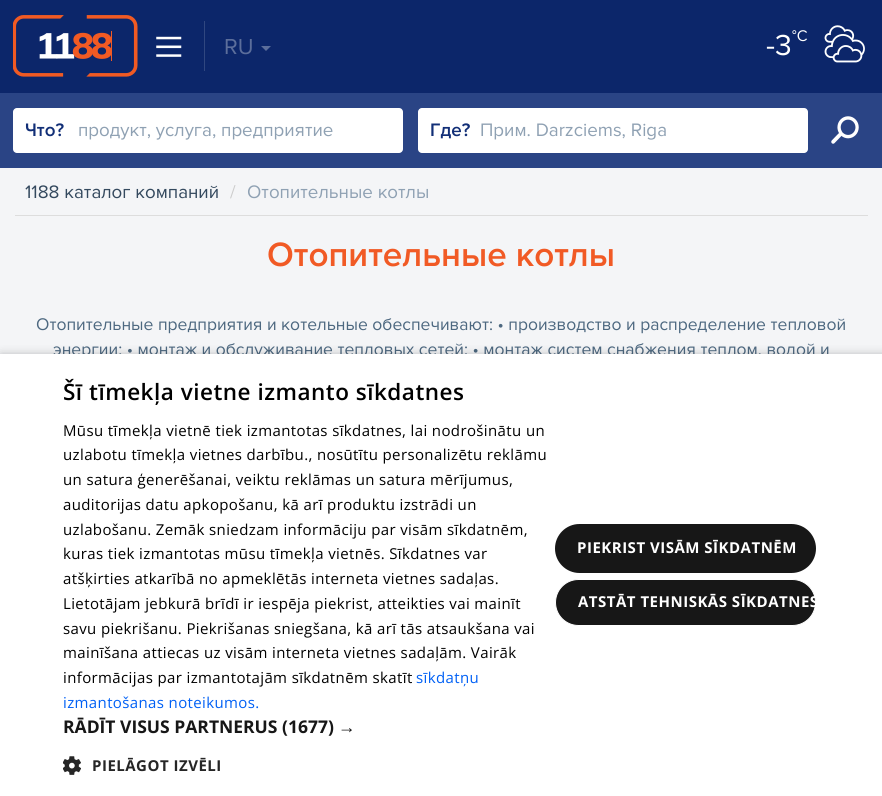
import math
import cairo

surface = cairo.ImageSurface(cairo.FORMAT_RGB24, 882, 796)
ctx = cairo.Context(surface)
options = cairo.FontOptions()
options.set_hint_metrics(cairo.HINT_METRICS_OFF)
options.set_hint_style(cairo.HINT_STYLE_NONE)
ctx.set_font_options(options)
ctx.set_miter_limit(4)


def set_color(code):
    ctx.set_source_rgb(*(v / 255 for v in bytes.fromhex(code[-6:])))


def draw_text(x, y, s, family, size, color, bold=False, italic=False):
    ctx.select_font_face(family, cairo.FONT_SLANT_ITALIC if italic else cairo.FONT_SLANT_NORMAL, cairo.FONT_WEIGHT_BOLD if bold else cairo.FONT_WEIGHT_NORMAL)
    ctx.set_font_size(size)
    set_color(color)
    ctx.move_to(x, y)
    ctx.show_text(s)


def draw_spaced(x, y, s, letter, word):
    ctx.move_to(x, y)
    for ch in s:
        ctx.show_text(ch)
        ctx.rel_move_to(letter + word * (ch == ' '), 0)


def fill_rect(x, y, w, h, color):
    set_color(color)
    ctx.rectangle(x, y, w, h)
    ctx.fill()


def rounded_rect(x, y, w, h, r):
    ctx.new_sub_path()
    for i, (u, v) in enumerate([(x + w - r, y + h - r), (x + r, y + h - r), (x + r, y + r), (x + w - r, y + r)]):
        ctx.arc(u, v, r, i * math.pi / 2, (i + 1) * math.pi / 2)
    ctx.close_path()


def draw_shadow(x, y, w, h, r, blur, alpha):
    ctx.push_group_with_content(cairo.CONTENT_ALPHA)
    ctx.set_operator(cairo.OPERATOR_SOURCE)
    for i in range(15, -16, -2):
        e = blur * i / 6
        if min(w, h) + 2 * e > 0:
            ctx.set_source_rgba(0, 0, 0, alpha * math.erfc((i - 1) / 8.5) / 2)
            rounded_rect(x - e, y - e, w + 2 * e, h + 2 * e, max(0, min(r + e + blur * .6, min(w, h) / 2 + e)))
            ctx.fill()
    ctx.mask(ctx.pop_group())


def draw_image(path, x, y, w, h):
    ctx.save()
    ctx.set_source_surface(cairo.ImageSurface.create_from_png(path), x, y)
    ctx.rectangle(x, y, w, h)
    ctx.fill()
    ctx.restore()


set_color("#f4f5f7")
ctx.paint()
fill_rect(0, 0, 882, 93, "#0c266a")
draw_image("assets/img1.png", 13, 15, 125, 62)
fill_rect(111, 31, 1, 30, "#f05a25")
draw_image("assets/img2.png", 156, 36, 26, 21)
fill_rect(204, 21, 1, 50, "#304780")
draw_text(224, 54, "RU", "Proxima Nova", 22.5, "#5c6e9b")
ctx.new_path()
ctx.move_to(261, 46)
ctx.line_to(271, 46)
ctx.line_to(266, 51)
ctx.close_path()
ctx.fill()
draw_text(766, 55, "-3", "Proxima Nova", 30, "#ffffff")
draw_text(792, 41, "°C", "Proxima Nova", 16, "#ffffff")
draw_image("assets/img3.png", 824, 25, 41, 38)
fill_rect(0, 93, 882, 75, "#2a4485")
set_color("#ffffff")
rounded_rect(13, 108, 390, 45, 4)
ctx.fill()
draw_text(25, 136, "Что?", "Proxima Nova SemiBold", 18.75, "#122f77")
draw_text(78, 136, "продукт, услуга, предприятие", "Proxima Nova", 18.75, "#8fa1b3")
set_color("#ffffff")
rounded_rect(418, 108, 390, 45, 4)
ctx.fill()
draw_text(430, 136, "Где?", "Proxima Nova SemiBold", 18.75, "#122f77")
draw_text(480, 136, "Прим. Darzciems, Riga", "Proxima Nova", 18.75, "#8fa1b3")
draw_image("assets/img4.png", 831, 116, 28, 28)
fill_rect(15, 215, 853, 1, "#dddddd")
draw_text(25, 198, "1188 каталог компаний", "Proxima Nova", 18.75, "#34495e")
draw_text(230, 198, "/", "Proxima Nova", 18.75, "#cccccc")
draw_text(247, 198, "Отопительные котлы", "Proxima Nova", 18.75, "#8fa1b3")
draw_text(267, 266, "Отопительные котлы", "Proxima Nova SemiBold", 35, "#f15a25")
draw_text(36, 330, "Отопительные предприятия и котельные обеспечивают: • производство и распределение тепловой", "Proxima Nova", 17.5, "#4d6880")
draw_text(53, 355, "энергии; • монтаж и обслуживание тепловых сетей; • монтаж систем снабжения теплом, водой и", "Proxima Nova", 17.5, "#4d6880")
set_color("#000000")
draw_shadow(1, 356, 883, 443, 0, 5, 0.35)
fill_rect(0, 354, 882, 442, "#ffffff")
ctx.select_font_face("Open Sans SemiBold")
ctx.set_font_size(22.5)
set_color("#000000")
draw_spaced(63, 400, "Šī tīmekļa vietne izmanto sīkdatnes", 0.5, 0)
ctx.select_font_face("Open Sans")
ctx.set_font_size(15)
draw_spaced(63, 436, "Mūsu tīmekļa vietnē tiek izmantotas sīkdatnes, lai nodrošinātu un", 0.38, 0)
draw_spaced(63, 460, "uzlabotu tīmekļa vietnes darbību., nosūtītu personalizētu reklāmu", 0.38, 0)
draw_spaced(63, 485, "un satura ģenerēšanai, veiktu reklāmas un satura mērījumus,", 0.38, 0)
draw_spaced(63, 510, "auditorijas datu apkopošanu, kā arī produktu izstrādi un", 0.38, 0)
draw_spaced(63, 535, "uzlabošanu. Zemāk sniedzam informāciju par visām sīkdatnēm,", 0.38, 0)
draw_spaced(63, 559, "kuras tiek izmantotas mūsu tīmekļa vietnēs. Sīkdatnes var", 0.38, 0)
draw_spaced(63, 584, "atšķirties atkarībā no apmeklētās interneta vietnes sadaļas.", 0.38, 0)
draw_spaced(63, 609, "Lietotājam jebkurā brīdī ir iespēja piekrist, atteikties vai mainīt", 0.38, 0)
draw_spaced(63, 634, "savu piekrišanu. Piekrišanas sniegšana, kā arī tās atsaukšana vai", 0.38, 0)
draw_spaced(63, 658, "mainīšana attiecas uz visām interneta vietnes sadaļām. Vairāk", 0.38, 0)
draw_spaced(63, 683, "informācijas par izmantotajām sīkdatnēm skatīt", 0.38, 0)
set_color("#0060f5")
draw_spaced(416, 683, "sīkdatņu", 0.38, 0)
draw_spaced(63, 708, "izmantošanas noteikumos.", 0.38, 0)
draw_text(63, 733, "RĀDĪT VISUS PARTNERUS (1677)", "Open Sans", 17.5, "#171717", bold=True)
draw_text(338, 733, "→", "Liberation Sans", 17.5, "#171717", bold=True)
draw_image("assets/img5.png", 63, 756, 18, 19)
ctx.select_font_face("Open Sans", cairo.FONT_SLANT_NORMAL, cairo.FONT_WEIGHT_BOLD)
ctx.set_font_size(15)
set_color("#262626")
draw_spaced(92, 771, "PIELĀGOT IZVĒLI", 0.5, 0)
set_color("#171717")
rounded_rect(555, 524, 261, 49, 24.5)
ctx.fill()
set_color("#ffffff")
draw_spaced(577, 553, "PIEKRIST VISĀM SĪKDATNĒM", 0.5, 0)
set_color("#171717")
rounded_rect(555.5, 579.5, 260, 46, 23)
ctx.fill_preserve()
set_color("#ffffff")
ctx.set_line_width(1)
ctx.stroke()
draw_spaced(578, 607, "ATSTĀT TEHNISKĀS SĪKDATNES", 0.5, 0)
surface.write_to_png("output.png")
